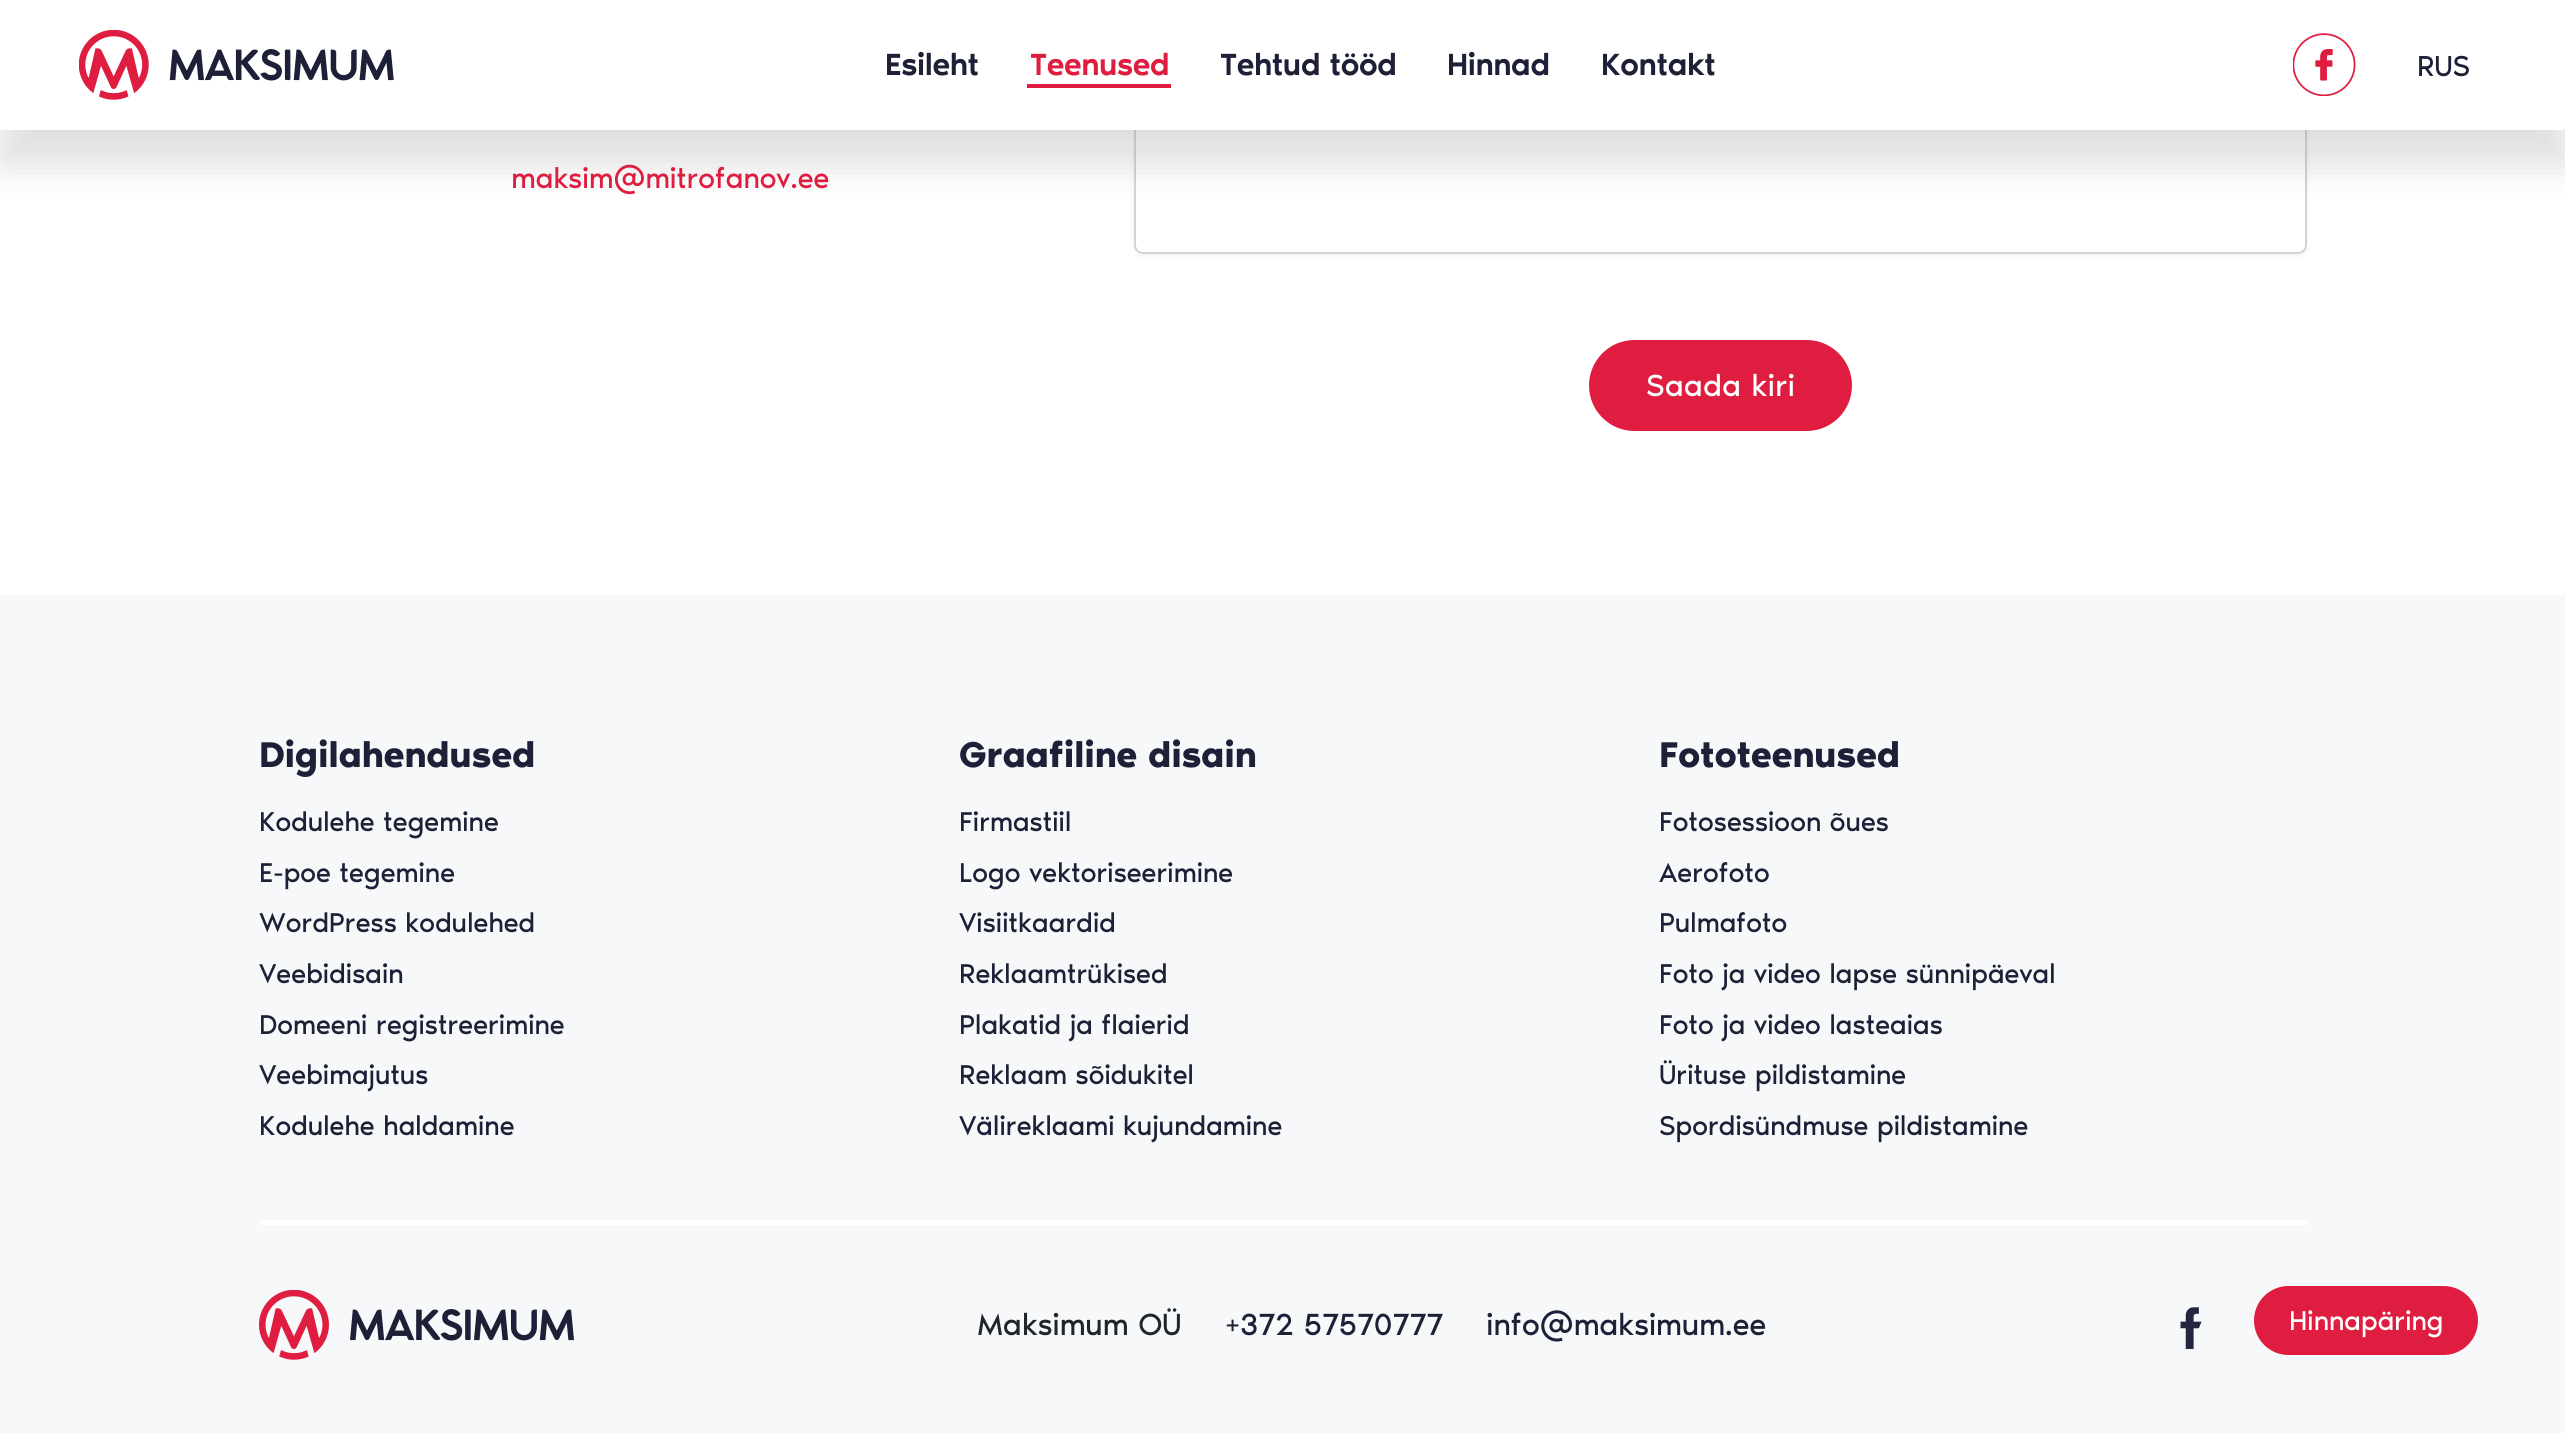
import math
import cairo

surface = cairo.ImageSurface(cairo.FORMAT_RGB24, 2565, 1433)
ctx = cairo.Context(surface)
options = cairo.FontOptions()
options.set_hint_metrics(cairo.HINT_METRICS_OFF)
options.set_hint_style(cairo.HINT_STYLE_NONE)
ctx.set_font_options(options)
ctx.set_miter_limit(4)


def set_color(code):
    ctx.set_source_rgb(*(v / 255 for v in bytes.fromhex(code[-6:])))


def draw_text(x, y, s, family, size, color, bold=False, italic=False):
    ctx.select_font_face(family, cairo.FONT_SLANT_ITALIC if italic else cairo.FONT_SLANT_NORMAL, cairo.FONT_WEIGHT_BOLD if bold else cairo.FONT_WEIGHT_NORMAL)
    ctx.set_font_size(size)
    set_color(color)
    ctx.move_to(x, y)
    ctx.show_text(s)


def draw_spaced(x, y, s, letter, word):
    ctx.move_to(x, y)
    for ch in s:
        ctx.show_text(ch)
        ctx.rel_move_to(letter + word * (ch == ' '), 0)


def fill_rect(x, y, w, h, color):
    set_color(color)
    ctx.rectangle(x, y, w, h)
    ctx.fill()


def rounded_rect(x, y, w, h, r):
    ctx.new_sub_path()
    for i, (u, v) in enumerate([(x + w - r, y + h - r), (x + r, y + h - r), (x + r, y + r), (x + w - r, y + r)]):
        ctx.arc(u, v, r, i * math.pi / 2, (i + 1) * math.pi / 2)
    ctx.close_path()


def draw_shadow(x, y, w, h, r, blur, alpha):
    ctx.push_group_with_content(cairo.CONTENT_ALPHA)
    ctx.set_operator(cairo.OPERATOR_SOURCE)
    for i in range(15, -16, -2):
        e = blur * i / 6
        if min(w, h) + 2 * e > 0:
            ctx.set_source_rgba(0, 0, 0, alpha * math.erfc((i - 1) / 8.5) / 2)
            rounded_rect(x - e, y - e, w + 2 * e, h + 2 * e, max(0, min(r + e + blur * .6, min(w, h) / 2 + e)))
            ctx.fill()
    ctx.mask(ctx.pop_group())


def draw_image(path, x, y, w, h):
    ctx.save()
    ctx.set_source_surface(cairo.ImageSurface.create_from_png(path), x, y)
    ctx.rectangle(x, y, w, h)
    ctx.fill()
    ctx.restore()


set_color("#ffffff")
ctx.paint()
set_color("#000000")
draw_shadow(1134, -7, 1173, 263, 9, 2.5, 0.06)
set_color("#ffffff")
rounded_rect(1135, -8, 1171, 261, 8)
ctx.fill_preserve()
set_color("#ced4da")
ctx.stroke()
set_color("#969696")
draw_shadow(0, 33, 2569, 133, 0, 17.5, 0.3)
fill_rect(0, 0, 2565, 130, "#ffffff")
draw_image("assets/img1.png", 79, 30, 315, 70)
ctx.select_font_face("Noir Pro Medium")
ctx.set_font_size(31.5)
set_color("#1d2037")
draw_spaced(885, 75, "Esileht", -0.35, 0)
fill_rect(1027, 84, 144, 4, "#df1d40")
draw_spaced(1030, 75, "Teenused", -0.35, 0)
set_color("#1d2037")
draw_spaced(1220, 75, "Tehtud tööd", -0.35, 0)
draw_spaced(1447, 75, "Hinnad", -0.35, 0)
draw_spaced(1601, 75, "Kontakt", -0.35, 0)
draw_image("assets/img2.png", 2293, 33, 63, 63)
ctx.select_font_face("Noir Pro")
ctx.set_font_size(29.75)
draw_spaced(2417, 76, "RUS", -0.35, 0)
set_color("#df1d40")
draw_spaced(511, 188, "maksim@mitrofanov.ee", -0.35, 0)
rounded_rect(1591, 342, 259, 87, 43.5)
ctx.fill_preserve()
ctx.set_line_width(4)
ctx.stroke()
draw_text(1646, 396, "Saada kiri", "Noir Pro", 31.5, "#ffffff")
fill_rect(0, 595, 2565, 838, "#f6f8f9")
ctx.select_font_face("Noir Pro SemiBold")
ctx.set_font_size(36.75)
set_color("#1d2037")
draw_spaced(259, 767, "Digilahendused", -0.35, 0)
ctx.select_font_face("Noir Pro")
ctx.set_font_size(28)
draw_spaced(259, 831, "Kodulehe tegemine", -0.35, 0)
draw_spaced(259, 882, "E-poe tegemine", -0.35, 0)
draw_spaced(259, 932, "WordPress kodulehed", -0.35, 0)
draw_spaced(259, 983, "Veebidisain", -0.35, 0)
draw_spaced(259, 1034, "Domeeni registreerimine", -0.35, 0)
draw_spaced(259, 1084, "Veebimajutus", -0.35, 0)
draw_spaced(259, 1135, "Kodulehe haldamine", -0.35, 0)
ctx.select_font_face("Noir Pro SemiBold")
ctx.set_font_size(36.75)
draw_spaced(959, 767, "Graafiline disain", -0.35, 0)
ctx.select_font_face("Noir Pro")
ctx.set_font_size(28)
draw_spaced(959, 831, "Firmastiil", -0.35, 0)
draw_spaced(959, 882, "Logo vektoriseerimine", -0.35, 0)
draw_spaced(959, 932, "Visiitkaardid", -0.35, 0)
draw_spaced(959, 983, "Reklaamtrükised", -0.35, 0)
draw_spaced(959, 1034, "Plakatid ja flaierid", -0.35, 0)
draw_spaced(959, 1084, "Reklaam sõidukitel", -0.35, 0)
draw_spaced(959, 1135, "Välireklaami kujundamine", -0.35, 0)
ctx.select_font_face("Noir Pro SemiBold")
ctx.set_font_size(36.75)
draw_spaced(1659, 767, "Fototeenused", -0.35, 0)
ctx.select_font_face("Noir Pro")
ctx.set_font_size(28)
draw_spaced(1659, 831, "Fotosessioon õues", -0.35, 0)
draw_spaced(1659, 882, "Aerofoto", -0.35, 0)
draw_spaced(1659, 932, "Pulmafoto", -0.35, 0)
draw_spaced(1659, 983, "Foto ja video lapse sünnipäeval", -0.35, 0)
draw_spaced(1659, 1034, "Foto ja video lasteaias", -0.35, 0)
draw_spaced(1659, 1084, "Ürituse pildistamine", -0.35, 0)
draw_spaced(1659, 1135, "Spordisündmuse pildistamine", -0.35, 0)
fill_rect(259, 1220, 2048, 5, "#ffffff")
draw_image("assets/img3.png", 259, 1290, 315, 70)
ctx.set_font_size(31.5)
set_color("#212529")
draw_spaced(977, 1335, "Maksimum OÜ", -0.35, 0)
set_color("#1d2037")
draw_spaced(1225, 1335, "+372 57570777", -0.35, 0)
draw_spaced(1486, 1335, "info@maksimum.ee", -0.35, 0)
draw_image("assets/img4.png", 2180, 1307, 22, 42)
draw_image("assets/img5.png", 2265, 1345, 3, 3)
set_color("#df1d40")
rounded_rect(2254, 1286, 224, 69, 34.5)
ctx.fill()
ctx.set_font_size(28)
set_color("#ffffff")
draw_spaced(2289, 1330, "Hinnapäring", -0.35, 0)
surface.write_to_png("output.png")
